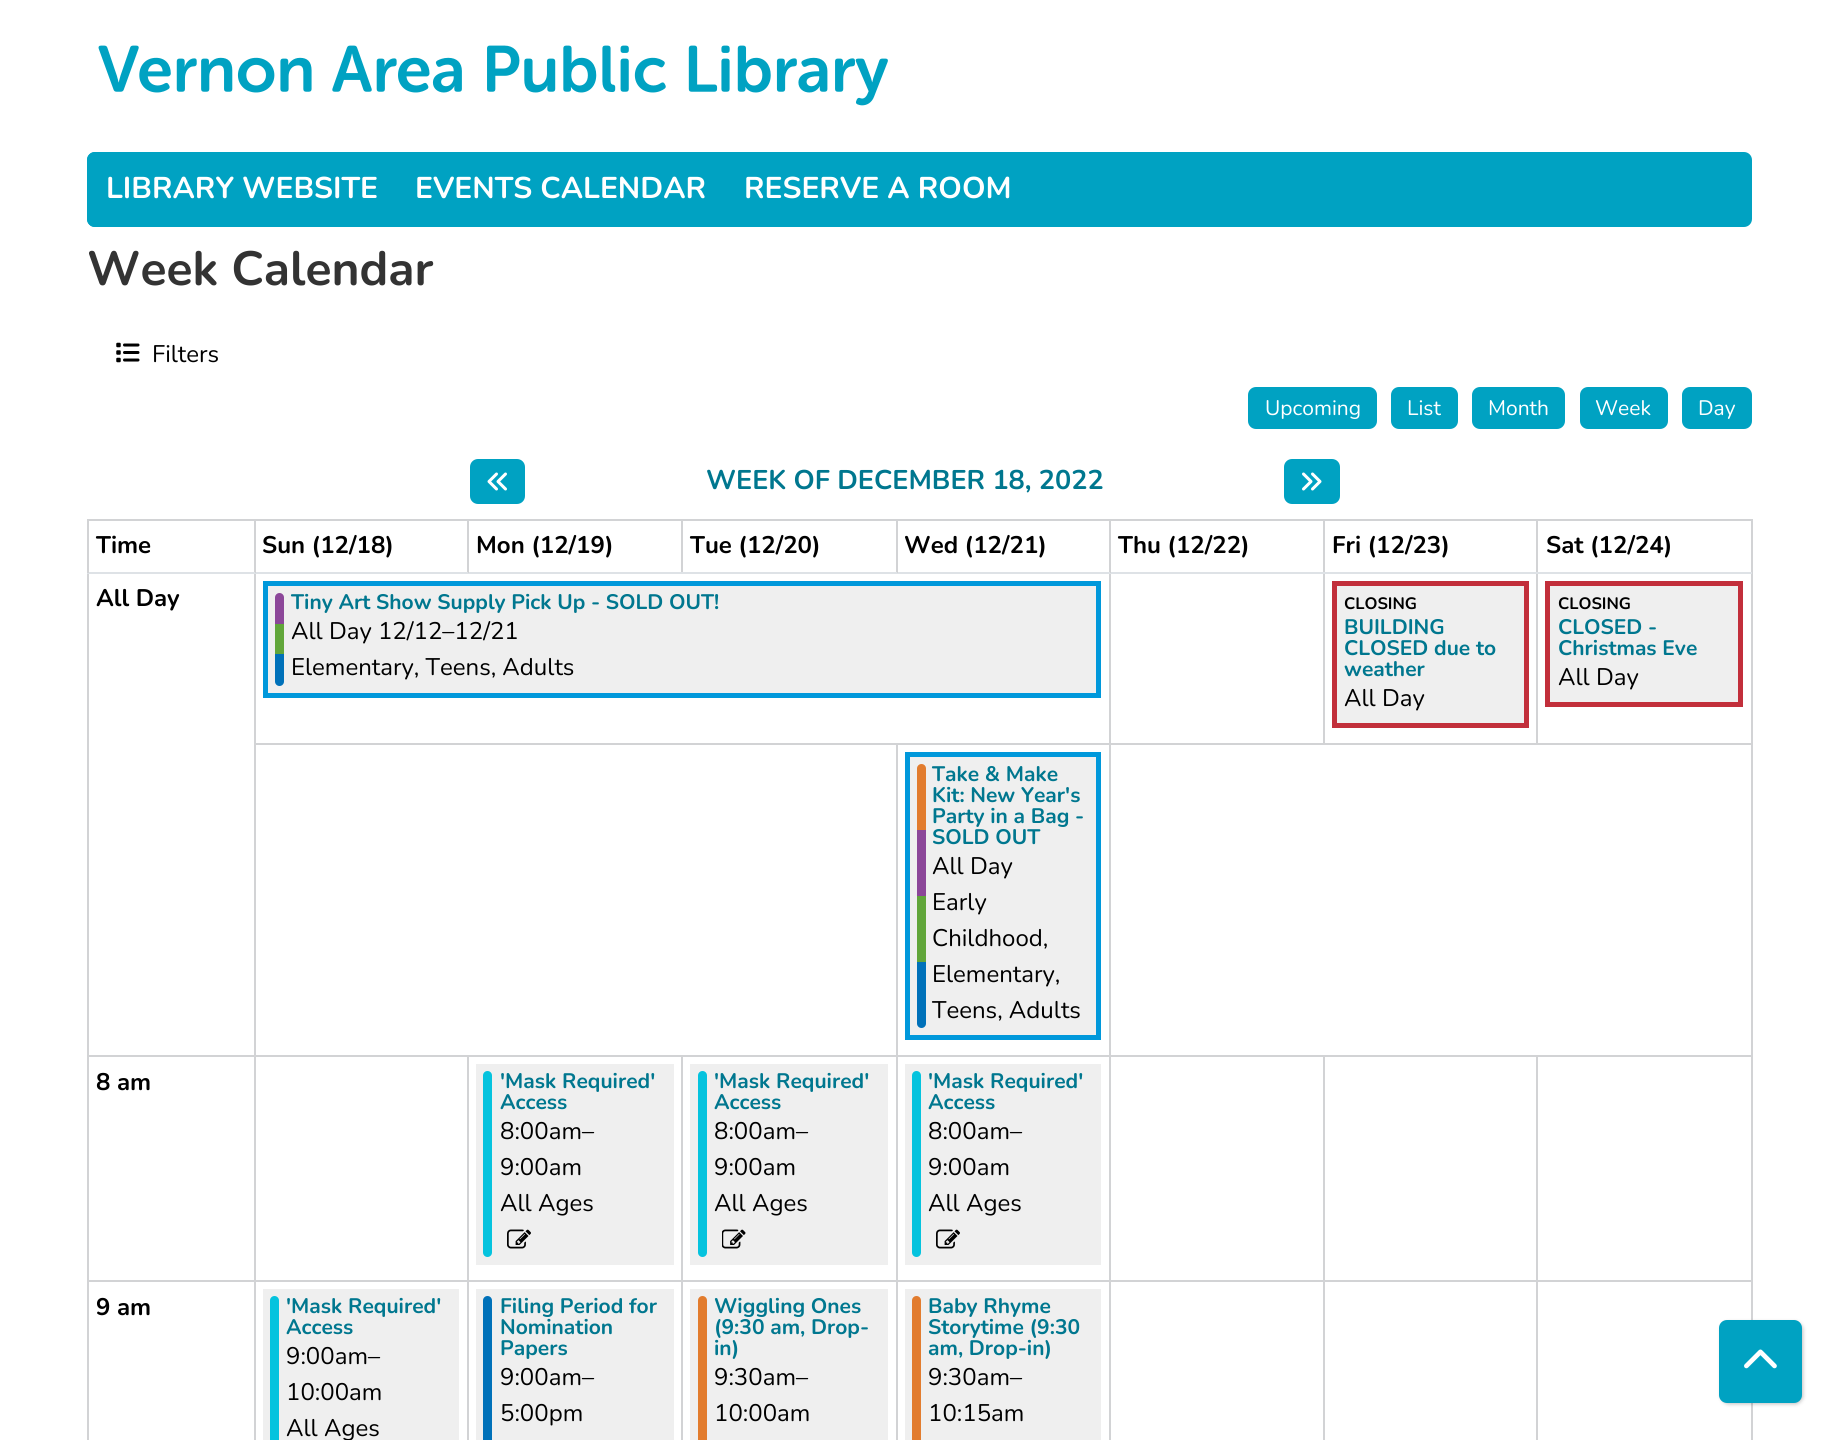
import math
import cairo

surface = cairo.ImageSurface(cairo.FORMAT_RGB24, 1838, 1440)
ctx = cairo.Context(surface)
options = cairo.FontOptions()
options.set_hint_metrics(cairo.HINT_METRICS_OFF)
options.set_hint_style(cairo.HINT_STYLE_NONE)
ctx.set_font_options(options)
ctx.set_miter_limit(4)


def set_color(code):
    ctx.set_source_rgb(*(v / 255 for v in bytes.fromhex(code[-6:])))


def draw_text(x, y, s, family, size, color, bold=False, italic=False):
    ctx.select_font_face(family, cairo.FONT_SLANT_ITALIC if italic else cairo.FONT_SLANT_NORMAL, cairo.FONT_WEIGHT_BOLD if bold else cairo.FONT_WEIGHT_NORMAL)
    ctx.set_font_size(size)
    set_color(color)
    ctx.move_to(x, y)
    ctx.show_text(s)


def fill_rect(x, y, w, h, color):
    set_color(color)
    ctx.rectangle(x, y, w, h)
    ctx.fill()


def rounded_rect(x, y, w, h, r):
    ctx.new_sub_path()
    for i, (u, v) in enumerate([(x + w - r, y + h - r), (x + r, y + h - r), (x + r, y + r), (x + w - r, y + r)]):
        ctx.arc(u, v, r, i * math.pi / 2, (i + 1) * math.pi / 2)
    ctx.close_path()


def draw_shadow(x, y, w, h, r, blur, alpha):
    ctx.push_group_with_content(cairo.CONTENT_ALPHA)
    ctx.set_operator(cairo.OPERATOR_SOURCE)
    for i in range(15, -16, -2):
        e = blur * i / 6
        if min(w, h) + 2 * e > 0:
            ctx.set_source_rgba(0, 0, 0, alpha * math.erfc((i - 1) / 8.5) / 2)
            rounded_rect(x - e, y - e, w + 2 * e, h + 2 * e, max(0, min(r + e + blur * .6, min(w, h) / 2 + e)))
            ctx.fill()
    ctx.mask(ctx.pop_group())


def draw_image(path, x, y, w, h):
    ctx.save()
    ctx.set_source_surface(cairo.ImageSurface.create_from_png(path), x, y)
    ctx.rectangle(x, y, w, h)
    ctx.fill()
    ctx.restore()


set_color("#ffffff")
ctx.paint()
draw_image("assets/img1.png", 98, 45, 790, 61)
set_color("#00a2c2")
rounded_rect(87, 152, 1665, 75, 8)
ctx.fill()
ctx.new_path()
ctx.move_to(95, 152)
ctx.line_to(396, 152)
ctx.line_to(396, 227)
ctx.line_to(95, 227)
ctx.curve_to(90.5, 227, 87, 223.5, 87, 219)
ctx.line_to(87, 160)
ctx.curve_to(87, 155.5, 90.5, 152, 95, 152)
ctx.close_path()
ctx.fill()
draw_text(106, 198, "LIBRARY WEBSITE", "Nunito", 30, "#ffffff", bold=True)
draw_text(415, 198, "EVENTS CALENDAR", "Nunito", 30, "#ffffff", bold=True)
draw_text(744, 198, "RESERVE A ROOM", "Nunito", 30, "#ffffff", bold=True)
draw_text(87, 285, "Week Calendar", "Nunito", 48, "#333333", bold=True)
draw_image("assets/img2.png", 116, 342, 24, 21)
draw_text(152, 362, "Filters", "Nunito", 24, "#000000")
set_color("#00a2c2")
rounded_rect(1249, 388, 127, 40, 7)
ctx.fill_preserve()
ctx.stroke()
draw_text(1265, 415, "Upcoming", "Nunito", 21, "#ffffff")
set_color("#00a2c2")
rounded_rect(1392, 388, 65, 40, 7)
ctx.fill_preserve()
ctx.stroke()
draw_text(1407, 415, "List", "Nunito", 21, "#ffffff")
set_color("#00a2c2")
rounded_rect(1473, 388, 91, 40, 7)
ctx.fill_preserve()
ctx.stroke()
draw_text(1488, 415, "Month", "Nunito", 21, "#ffffff")
set_color("#00a2c2")
rounded_rect(1581, 388, 86, 40, 7)
ctx.fill_preserve()
ctx.stroke()
draw_text(1595, 415, "Week", "Nunito", 21, "#ffffff")
set_color("#00a2c2")
rounded_rect(1683, 388, 68, 40, 7)
ctx.fill_preserve()
ctx.stroke()
draw_text(1698, 415, "Day", "Nunito", 21, "#ffffff")
set_color("#00a2c2")
rounded_rect(471, 460, 53, 43, 7)
ctx.fill_preserve()
ctx.stroke()
draw_image("assets/img3.png", 487, 472, 20, 19)
draw_text(706, 489, "WEEK OF DECEMBER 18, 2022", "Nunito", 27, "#00778f", bold=True)
set_color("#00a2c2")
rounded_rect(1285, 460, 54, 43, 7)
ctx.fill_preserve()
ctx.stroke()
draw_image("assets/img4.png", 1302, 472, 20, 19)
fill_rect(1536, 519, 216, 2, "#d2d3d5")
fill_rect(1109, 743, 643, 2, "#d2d3d5")
fill_rect(1536, 1055, 216, 2, "#d2d3d5")
fill_rect(1536, 1280, 216, 2, "#d2d3d5")
fill_rect(1751, 1280, 2, 160, "#d2d3d5")
fill_rect(1751, 1055, 2, 226, "#d2d3d5")
fill_rect(1751, 572, 2, 484, "#d2d3d5")
fill_rect(1751, 519, 2, 54, "#d2d3d5")
fill_rect(1536, 572, 2, 172, "#d2d3d5")
fill_rect(1536, 572, 216, 2, "#dee2e6")
fill_rect(1536, 519, 2, 54, "#d2d3d5")
fill_rect(1323, 519, 215, 2, "#d2d3d5")
fill_rect(1323, 572, 2, 172, "#d2d3d5")
fill_rect(1323, 572, 215, 2, "#dee2e6")
fill_rect(1323, 519, 2, 54, "#d2d3d5")
fill_rect(1109, 519, 216, 2, "#d2d3d5")
fill_rect(1536, 1280, 2, 160, "#d2d3d5")
fill_rect(1323, 1280, 215, 2, "#d2d3d5")
fill_rect(1536, 1055, 2, 226, "#d2d3d5")
fill_rect(1323, 1055, 215, 2, "#d2d3d5")
fill_rect(1323, 1280, 2, 160, "#d2d3d5")
fill_rect(1109, 1280, 216, 2, "#d2d3d5")
fill_rect(1323, 1055, 2, 226, "#d2d3d5")
fill_rect(1109, 1055, 216, 2, "#d2d3d5")
fill_rect(1109, 1280, 2, 160, "#d2d3d5")
fill_rect(896, 1280, 214, 2, "#d2d3d5")
fill_rect(1109, 1055, 2, 226, "#d2d3d5")
fill_rect(896, 1055, 214, 2, "#d2d3d5")
fill_rect(1109, 743, 2, 313, "#d2d3d5")
fill_rect(896, 743, 214, 2, "#d2d3d5")
fill_rect(1109, 572, 2, 172, "#d2d3d5")
fill_rect(1109, 572, 216, 2, "#dee2e6")
fill_rect(1109, 519, 2, 54, "#d2d3d5")
fill_rect(896, 519, 214, 2, "#d2d3d5")
fill_rect(896, 572, 214, 2, "#dee2e6")
fill_rect(896, 519, 2, 54, "#d2d3d5")
fill_rect(681, 519, 216, 2, "#d2d3d5")
fill_rect(681, 572, 216, 2, "#dee2e6")
fill_rect(681, 519, 2, 54, "#d2d3d5")
fill_rect(467, 519, 216, 2, "#d2d3d5")
fill_rect(467, 572, 216, 2, "#dee2e6")
fill_rect(467, 519, 2, 54, "#d2d3d5")
fill_rect(254, 519, 214, 2, "#d2d3d5")
fill_rect(896, 1280, 2, 160, "#d2d3d5")
fill_rect(681, 1280, 216, 2, "#d2d3d5")
fill_rect(896, 1055, 2, 226, "#d2d3d5")
fill_rect(681, 1055, 216, 2, "#d2d3d5")
fill_rect(896, 743, 2, 313, "#d2d3d5")
fill_rect(254, 743, 643, 2, "#d2d3d5")
fill_rect(681, 1280, 2, 160, "#d2d3d5")
fill_rect(467, 1280, 216, 2, "#d2d3d5")
fill_rect(681, 1055, 2, 226, "#d2d3d5")
fill_rect(467, 1055, 216, 2, "#d2d3d5")
fill_rect(467, 1280, 2, 160, "#d2d3d5")
fill_rect(254, 1280, 214, 2, "#d2d3d5")
fill_rect(467, 1055, 2, 226, "#d2d3d5")
fill_rect(254, 1055, 214, 2, "#d2d3d5")
fill_rect(254, 1280, 2, 160, "#d2d3d5")
fill_rect(87, 1280, 168, 2, "#d2d3d5")
fill_rect(254, 1055, 2, 226, "#d2d3d5")
fill_rect(87, 1055, 168, 2, "#d2d3d5")
fill_rect(254, 572, 2, 484, "#d2d3d5")
fill_rect(254, 572, 214, 2, "#dee2e6")
fill_rect(254, 519, 2, 54, "#d2d3d5")
fill_rect(87, 519, 168, 2, "#d2d3d5")
fill_rect(87, 1280, 2, 160, "#d2d3d5")
fill_rect(87, 572, 2, 709, "#d2d3d5")
fill_rect(87, 572, 168, 2, "#dee2e6")
fill_rect(87, 519, 2, 54, "#d2d3d5")
draw_text(96, 553, "Time", "Nunito", 24, "#000000", bold=True)
draw_text(262, 553, "Sun (12/18)", "Nunito", 24, "#000000", bold=True)
draw_text(476, 553, "Mon (12/19)", "Nunito", 24, "#000000", bold=True)
draw_text(690, 553, "Tue (12/20)", "Nunito", 24, "#000000", bold=True)
draw_text(904, 553, "Wed (12/21)", "Nunito", 24, "#000000", bold=True)
draw_text(1118, 553, "Thu (12/22)", "Nunito", 24, "#000000", bold=True)
draw_text(1332, 553, "Fri (12/23)", "Nunito", 24, "#000000", bold=True)
draw_text(1546, 553, "Sat (12/24)", "Nunito", 24, "#000000", bold=True)
draw_text(96, 606, "All Day", "Nunito", 24, "#000000", bold=True)
set_color("#efefef")
ctx.rectangle(265.5, 583.5, 833, 112)
ctx.fill_preserve()
set_color("#0098db")
ctx.set_line_width(5)
ctx.stroke()
set_color("#8c4799")
ctx.new_path()
ctx.move_to(279.5, 593)
ctx.curve_to(282, 593, 284, 595, 284, 597.5)
ctx.line_to(284, 624)
ctx.line_to(275, 624)
ctx.line_to(275, 597.5)
ctx.curve_to(275, 595, 277, 593, 279.5, 593)
ctx.close_path()
ctx.fill()
fill_rect(275, 624, 9, 30, "#61a63a")
set_color("#0071b9")
ctx.new_path()
ctx.move_to(275, 654)
ctx.line_to(284, 654)
ctx.line_to(284, 681.5)
ctx.curve_to(284, 684, 282, 686, 279.5, 686)
ctx.curve_to(277, 686, 275, 684, 275, 681.5)
ctx.close_path()
ctx.fill()
draw_text(291, 609, "Tiny Art Show Supply Pick Up - SOLD OUT!", "Nunito", 21, "#00778f", bold=True)
draw_text(291, 639, "All Day 12/12–12/21", "Nunito", 24, "#000000")
draw_text(291, 675, "Elementary, Teens, Adults", "Nunito", 24, "#000000")
set_color("#efefef")
ctx.rectangle(1334.5, 583.5, 192, 142)
ctx.fill_preserve()
set_color("#c22f3b")
ctx.stroke()
draw_text(1344, 609, "CLOSING", "Nunito", 16.5, "#000000", bold=True)
draw_text(1344, 634, "BUILDING", "Nunito", 21, "#00778f", bold=True)
draw_text(1344, 655, "CLOSED due to", "Nunito", 21, "#00778f", bold=True)
draw_text(1344, 676, "weather", "Nunito", 21, "#00778f", bold=True)
draw_text(1344, 706, "All Day", "Nunito", 24, "#000000")
set_color("#efefef")
ctx.rectangle(1547.5, 583.5, 193, 121)
ctx.fill_preserve()
set_color("#c22f3b")
ctx.stroke()
draw_text(1558, 609, "CLOSING", "Nunito", 16.5, "#000000", bold=True)
draw_text(1558, 634, "CLOSED -", "Nunito", 21, "#00778f", bold=True)
draw_text(1558, 655, "Christmas Eve", "Nunito", 21, "#00778f", bold=True)
draw_text(1558, 685, "All Day", "Nunito", 24, "#000000")
set_color("#efefef")
ctx.rectangle(907.5, 754.5, 191, 283)
ctx.fill_preserve()
set_color("#0098db")
ctx.stroke()
set_color("#e27c2e")
ctx.new_path()
ctx.move_to(921.5, 764)
ctx.curve_to(924, 764, 926, 766, 926, 768.5)
ctx.line_to(926, 830)
ctx.line_to(917, 830)
ctx.line_to(917, 768.5)
ctx.curve_to(917, 766, 919, 764, 921.5, 764)
ctx.close_path()
ctx.fill()
fill_rect(917, 830, 9, 66, "#8c4799")
fill_rect(917, 896, 9, 66, "#61a63a")
set_color("#0071b9")
ctx.new_path()
ctx.move_to(917, 962)
ctx.line_to(926, 962)
ctx.line_to(926, 1023.5)
ctx.curve_to(926, 1026, 924, 1028, 921.5, 1028)
ctx.curve_to(919, 1028, 917, 1026, 917, 1023.5)
ctx.close_path()
ctx.fill()
draw_text(932, 781, "Take & Make", "Nunito", 21, "#00778f", bold=True)
draw_text(932, 802, "Kit: New Year's", "Nunito", 21, "#00778f", bold=True)
draw_text(932, 823, "Party in a Bag -", "Nunito", 21, "#00778f", bold=True)
draw_text(932, 844, "SOLD OUT", "Nunito", 21, "#00778f", bold=True)
draw_text(932, 874, "All Day", "Nunito", 24, "#000000")
draw_text(932, 910, "Early", "Nunito", 24, "#000000")
draw_text(932, 946, "Childhood,", "Nunito", 24, "#000000")
draw_text(932, 982, "Elementary,", "Nunito", 24, "#000000")
draw_text(932, 1018, "Teens, Adults", "Nunito", 24, "#000000")
draw_text(96, 1090, "8 am", "Nunito", 24, "#000000", bold=True)
fill_rect(476, 1064, 198, 201, "#efefef")
set_color("#05c3de")
rounded_rect(483, 1071, 9, 186, 4.5)
ctx.fill()
draw_text(500, 1088, "'Mask Required'", "Nunito", 21, "#00778f", bold=True)
draw_text(500, 1109, "Access", "Nunito", 21, "#00778f", bold=True)
draw_text(500, 1139, "8:00am–", "Nunito", 24, "#000000")
draw_text(500, 1175, "9:00am", "Nunito", 24, "#000000")
draw_text(500, 1211, "All Ages", "Nunito", 24, "#000000")
draw_image("assets/img5.png", 507, 1229, 24, 20)
fill_rect(690, 1064, 198, 201, "#efefef")
set_color("#05c3de")
rounded_rect(698, 1071, 9, 186, 4.5)
ctx.fill()
draw_text(714, 1088, "'Mask Required'", "Nunito", 21, "#00778f", bold=True)
draw_text(714, 1109, "Access", "Nunito", 21, "#00778f", bold=True)
draw_text(714, 1139, "8:00am–", "Nunito", 24, "#000000")
draw_text(714, 1175, "9:00am", "Nunito", 24, "#000000")
draw_text(714, 1211, "All Ages", "Nunito", 24, "#000000")
draw_image("assets/img6.png", 722, 1229, 24, 20)
fill_rect(905, 1064, 196, 201, "#efefef")
set_color("#05c3de")
rounded_rect(912, 1071, 9, 186, 4.5)
ctx.fill()
draw_text(928, 1088, "'Mask Required'", "Nunito", 21, "#00778f", bold=True)
draw_text(928, 1109, "Access", "Nunito", 21, "#00778f", bold=True)
draw_text(928, 1139, "8:00am–", "Nunito", 24, "#000000")
draw_text(928, 1175, "9:00am", "Nunito", 24, "#000000")
draw_text(928, 1211, "All Ages", "Nunito", 24, "#000000")
draw_image("assets/img5.png", 936, 1229, 24, 20)
draw_text(96, 1315, "9 am", "Nunito", 24, "#000000", bold=True)
fill_rect(263, 1289, 196, 151, "#efefef")
set_color("#05c3de")
rounded_rect(270, 1296, 9, 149, 4.5)
ctx.fill()
draw_text(286, 1313, "'Mask Required'", "Nunito", 21, "#00778f", bold=True)
draw_text(286, 1334, "Access", "Nunito", 21, "#00778f", bold=True)
draw_text(286, 1364, "9:00am–", "Nunito", 24, "#000000")
draw_text(286, 1400, "10:00am", "Nunito", 24, "#000000")
draw_text(286, 1436, "All Ages", "Nunito", 24, "#000000")
fill_rect(476, 1289, 198, 151, "#efefef")
set_color("#0071b9")
rounded_rect(483, 1296, 9, 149, 4.5)
ctx.fill()
draw_text(500, 1313, "Filing Period for", "Nunito", 21, "#00778f", bold=True)
draw_text(500, 1334, "Nomination", "Nunito", 21, "#00778f", bold=True)
draw_text(500, 1355, "Papers", "Nunito", 21, "#00778f", bold=True)
draw_text(500, 1385, "9:00am–", "Nunito", 24, "#000000")
draw_text(500, 1421, "5:00pm", "Nunito", 24, "#000000")
fill_rect(690, 1289, 198, 151, "#efefef")
set_color("#e27c2e")
rounded_rect(698, 1296, 9, 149, 4.5)
ctx.fill()
draw_text(714, 1313, "Wiggling Ones", "Nunito", 21, "#00778f", bold=True)
draw_text(714, 1334, "(9:30 am, Drop-", "Nunito", 21, "#00778f", bold=True)
draw_text(714, 1355, "in)", "Nunito", 21, "#00778f", bold=True)
draw_text(714, 1385, "9:30am–", "Nunito", 24, "#000000")
draw_text(714, 1421, "10:00am", "Nunito", 24, "#000000")
fill_rect(905, 1289, 196, 151, "#efefef")
set_color("#e27c2e")
rounded_rect(912, 1296, 9, 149, 4.5)
ctx.fill()
draw_text(928, 1313, "Baby Rhyme", "Nunito", 21, "#00778f", bold=True)
draw_text(928, 1334, "Storytime (9:30", "Nunito", 21, "#00778f", bold=True)
draw_text(928, 1355, "am, Drop-in)", "Nunito", 21, "#00778f", bold=True)
draw_text(928, 1385, "9:30am–", "Nunito", 24, "#000000")
draw_text(928, 1421, "10:15am", "Nunito", 24, "#000000")
set_color("#000000")
draw_shadow(1721, 1322, 82, 82, 8, 2, 0.25)
set_color("#00a2c2")
rounded_rect(1720, 1321, 81, 81, 7)
ctx.fill_preserve()
ctx.set_line_width(2)
ctx.stroke()
draw_image("assets/img7.png", 1744, 1349, 33, 20)
surface.write_to_png("output.png")
